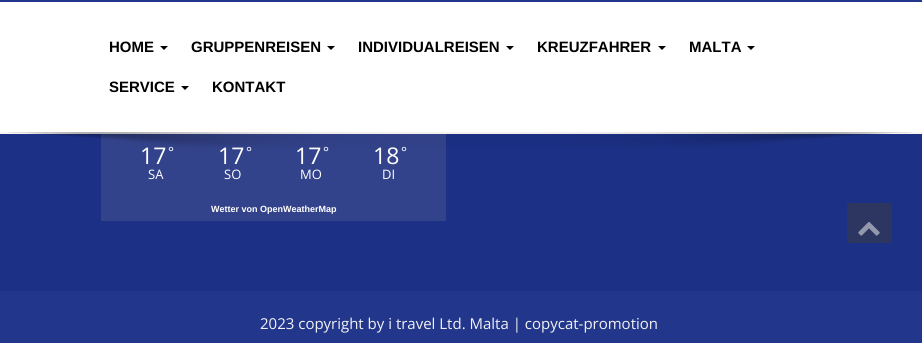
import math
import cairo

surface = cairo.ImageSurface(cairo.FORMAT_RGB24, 922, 343)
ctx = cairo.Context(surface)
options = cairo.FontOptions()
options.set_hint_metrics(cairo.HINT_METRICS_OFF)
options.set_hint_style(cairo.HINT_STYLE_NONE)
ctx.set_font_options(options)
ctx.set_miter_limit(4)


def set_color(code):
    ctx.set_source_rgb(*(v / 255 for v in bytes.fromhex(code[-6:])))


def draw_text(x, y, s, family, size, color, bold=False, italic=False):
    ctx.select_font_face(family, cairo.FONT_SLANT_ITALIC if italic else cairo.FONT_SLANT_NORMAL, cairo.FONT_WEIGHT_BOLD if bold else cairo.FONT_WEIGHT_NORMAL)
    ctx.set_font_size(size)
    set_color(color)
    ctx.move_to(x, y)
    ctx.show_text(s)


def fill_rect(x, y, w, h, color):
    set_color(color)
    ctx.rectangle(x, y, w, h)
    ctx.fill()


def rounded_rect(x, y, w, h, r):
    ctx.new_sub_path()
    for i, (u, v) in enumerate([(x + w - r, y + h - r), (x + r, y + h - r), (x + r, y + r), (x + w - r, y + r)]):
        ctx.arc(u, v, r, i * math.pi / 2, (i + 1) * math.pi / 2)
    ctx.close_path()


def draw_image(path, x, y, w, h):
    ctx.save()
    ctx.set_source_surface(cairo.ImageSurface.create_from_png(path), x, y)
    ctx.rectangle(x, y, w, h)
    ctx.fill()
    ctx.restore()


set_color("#1c3085")
ctx.paint()
fill_rect(0, 2, 922, 130, "#ffffff")
fill_rect(0, 0, 922, 2, "#22368c")
fill_rect(0, 132, 922, 2, "#f7f5f5")
draw_text(109, 52, "HOME", "Liberation Sans", 15, "#000000", bold=True)
ctx.new_path()
ctx.move_to(160, 46)
ctx.line_to(168, 46)
ctx.line_to(164, 50)
ctx.close_path()
ctx.fill()
draw_text(191, 52, "GRUPPENREISEN", "Liberation Sans", 15, "#000000", bold=True)
ctx.new_path()
ctx.move_to(327, 46)
ctx.line_to(335, 46)
ctx.line_to(331, 50)
ctx.close_path()
ctx.fill()
draw_text(358, 52, "INDIVIDUALREISEN", "Liberation Sans", 15, "#000000", bold=True)
ctx.new_path()
ctx.move_to(506, 46)
ctx.line_to(514, 46)
ctx.line_to(510, 50)
ctx.close_path()
ctx.fill()
draw_text(537, 52, "KREUZFAHRER", "Liberation Sans", 15, "#000000", bold=True)
ctx.new_path()
ctx.move_to(658, 46)
ctx.line_to(666, 46)
ctx.line_to(662, 50)
ctx.close_path()
ctx.fill()
draw_text(689, 52, "MALTA", "Liberation Sans", 15, "#000000", bold=True)
ctx.new_path()
ctx.move_to(747, 46)
ctx.line_to(755, 46)
ctx.line_to(751, 50)
ctx.close_path()
ctx.fill()
draw_text(109, 92, "SERVICE", "Liberation Sans", 15, "#000000", bold=True)
ctx.new_path()
ctx.move_to(181, 86)
ctx.line_to(189, 86)
ctx.line_to(185, 90)
ctx.close_path()
ctx.fill()
draw_text(212, 92, "KONTAKT", "Liberation Sans", 15, "#000000", bold=True)
fill_rect(101, 134, 345, 87, "#33438b")
draw_text(140, 164, "17", "Open Sans", 23, "#ffffff")
draw_text(168, 157, "°", "Open Sans", 14, "#ffffff")
draw_text(218, 164, "17", "Open Sans", 23, "#ffffff")
draw_text(246, 157, "°", "Open Sans", 14, "#ffffff")
draw_text(295, 164, "17", "Open Sans", 23, "#ffffff")
draw_text(323, 157, "°", "Open Sans", 14, "#ffffff")
draw_text(373, 164, "18", "Open Sans", 23, "#ffffff")
draw_text(401, 157, "°", "Open Sans", 14, "#ffffff")
draw_image("assets/img1.png", 7, 132, 906, 17)
draw_text(148, 179, "SA", "Open Sans", 13, "#ffffff")
draw_text(224, 179, "SO", "Open Sans", 13, "#ffffff")
draw_text(300, 179, "MO", "Open Sans", 13, "#ffffff")
draw_text(382, 179, "DI", "Open Sans", 13, "#ffffff")
draw_text(211, 212, "Wetter von OpenWeatherMap", "Liberation Sans", 9, "#ffffff", bold=True)
set_color("#2c3660")
rounded_rect(847, 203, 45, 40, 2)
ctx.fill()
draw_image("assets/img2.png", 858, 222, 22, 14)
fill_rect(0, 291, 922, 52, "#22368c")
draw_text(260, 329, "2023 copyright by i travel Ltd. Malta | copycat-promotion", "Open Sans", 15, "#f2f2f2")
surface.write_to_png("output.png")
